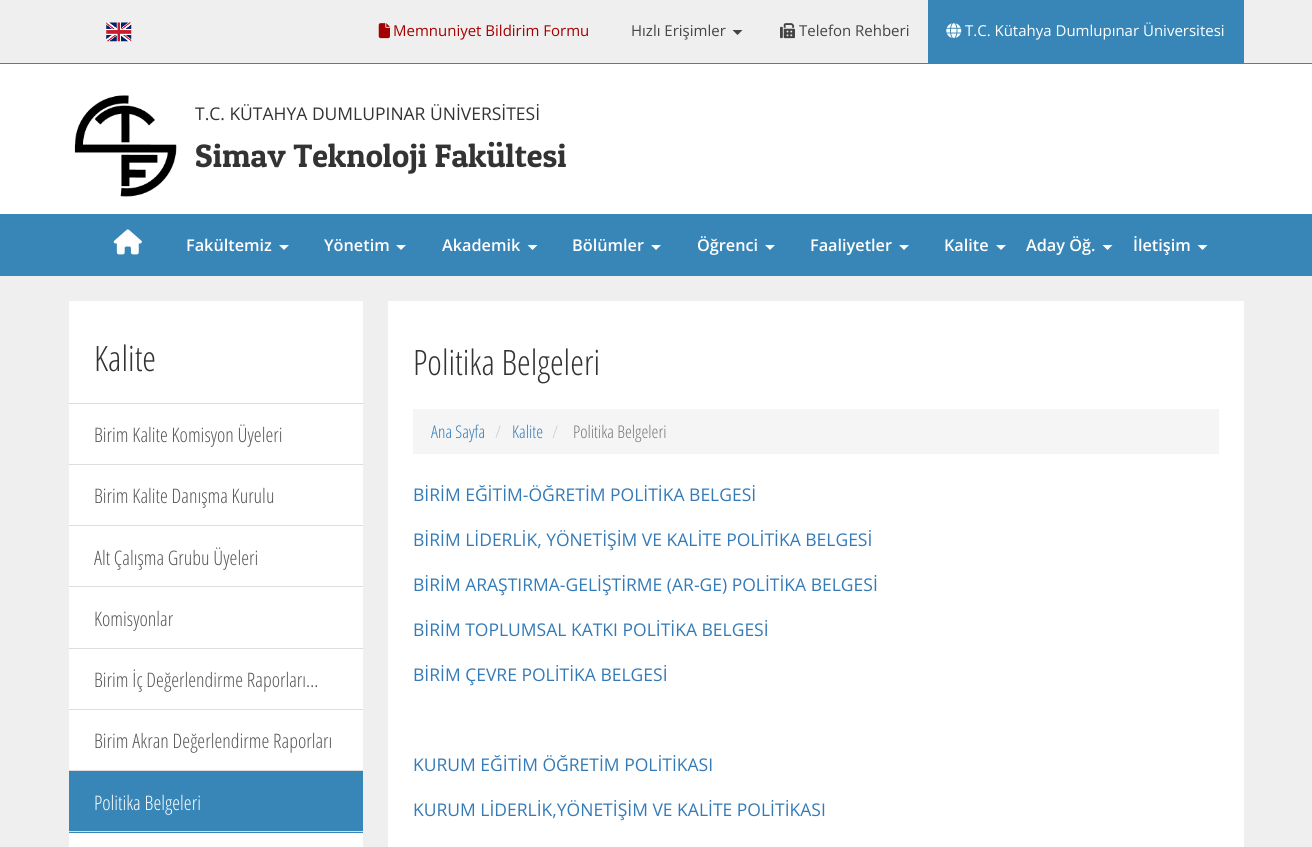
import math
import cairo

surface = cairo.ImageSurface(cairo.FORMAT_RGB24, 1312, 847)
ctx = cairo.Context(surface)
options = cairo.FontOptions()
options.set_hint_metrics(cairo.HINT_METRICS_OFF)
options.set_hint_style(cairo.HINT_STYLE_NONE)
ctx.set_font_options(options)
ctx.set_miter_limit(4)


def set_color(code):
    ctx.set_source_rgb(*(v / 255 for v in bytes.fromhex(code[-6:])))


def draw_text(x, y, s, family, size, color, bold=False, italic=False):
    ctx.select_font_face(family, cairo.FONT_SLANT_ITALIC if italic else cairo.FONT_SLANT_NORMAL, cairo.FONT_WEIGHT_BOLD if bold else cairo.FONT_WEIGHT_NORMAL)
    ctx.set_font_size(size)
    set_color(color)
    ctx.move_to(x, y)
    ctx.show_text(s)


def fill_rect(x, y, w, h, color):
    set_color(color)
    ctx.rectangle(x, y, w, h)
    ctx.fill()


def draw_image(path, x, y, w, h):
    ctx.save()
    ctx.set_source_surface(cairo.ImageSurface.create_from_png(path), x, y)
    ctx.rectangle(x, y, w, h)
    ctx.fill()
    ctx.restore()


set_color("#ffffff")
ctx.paint()
fill_rect(0, 0, 1312, 63, "#efefef")
fill_rect(0, 63, 1312, 1, "#3886b8")
draw_image("assets/img1.png", 106, 22, 26, 20)
draw_image("assets/img2.png", 378, 23, 12, 16)
draw_text(393, 36, "Memnuniyet Bildirim Formu", "Open Sans", 15, "#a40000")
draw_text(631, 36, "Hızlı Erişimler", "Open Sans", 15, "#444444")
ctx.new_path()
ctx.move_to(732.5, 30)
ctx.line_to(742.5, 30)
ctx.line_to(737.5, 35)
ctx.close_path()
ctx.fill()
draw_image("assets/img3.png", 780, 23, 15, 16)
draw_text(799, 36, "Telefon Rehberi", "Open Sans", 15, "#444444")
fill_rect(928, 0, 316, 63, "#3886b8")
draw_image("assets/img4.png", 946, 23, 16, 16)
draw_text(965, 36, "T.C. Kütahya Dumlupınar Üniversitesi", "Open Sans", 15, "#ffffff")
draw_image("assets/img5.png", 74, 95, 103, 102)
draw_text(195, 120, "T.C. KÜTAHYA DUMLUPINAR ÜNİVERSİTESİ", "Open Sans", 17.5, "#333333")
draw_text(195, 167, "Simav Teknoloji Fakültesi", "Patua One", 32.5, "#333333")
fill_rect(0, 214, 1312, 62, "#3886b8")
draw_image("assets/img6.png", 113, 229, 29, 26)
draw_text(186, 251, "Fakültemiz", "Open Sans SemiBold", 16.25, "#ffffff")
ctx.new_path()
ctx.move_to(279, 245)
ctx.line_to(289, 245)
ctx.line_to(284, 250)
ctx.close_path()
ctx.fill()
draw_text(324, 251, "Yönetim", "Open Sans SemiBold", 16.25, "#ffffff")
ctx.new_path()
ctx.move_to(396, 245)
ctx.line_to(406, 245)
ctx.line_to(401, 250)
ctx.close_path()
ctx.fill()
draw_text(442, 251, "Akademik", "Open Sans SemiBold", 16.25, "#ffffff")
ctx.new_path()
ctx.move_to(527.5, 245)
ctx.line_to(537.5, 245)
ctx.line_to(532.5, 250)
ctx.close_path()
ctx.fill()
draw_text(572, 251, "Bölümler", "Open Sans SemiBold", 16.25, "#ffffff")
ctx.new_path()
ctx.move_to(651, 245)
ctx.line_to(661, 245)
ctx.line_to(656, 250)
ctx.close_path()
ctx.fill()
draw_text(697, 251, "Öğrenci", "Open Sans SemiBold", 16.25, "#ffffff")
ctx.new_path()
ctx.move_to(765, 245)
ctx.line_to(775, 245)
ctx.line_to(770, 250)
ctx.close_path()
ctx.fill()
draw_text(810, 251, "Faaliyetler", "Open Sans SemiBold", 16.25, "#ffffff")
ctx.new_path()
ctx.move_to(899, 245)
ctx.line_to(909, 245)
ctx.line_to(904, 250)
ctx.close_path()
ctx.fill()
draw_text(944, 251, "Kalite", "Open Sans SemiBold", 16.25, "#ffffff")
ctx.new_path()
ctx.move_to(996, 245)
ctx.line_to(1006, 245)
ctx.line_to(1001, 250)
ctx.close_path()
ctx.fill()
draw_text(1026, 251, "Aday Öğ.", "Open Sans SemiBold", 16.25, "#ffffff")
ctx.new_path()
ctx.move_to(1102.5, 245)
ctx.line_to(1112.5, 245)
ctx.line_to(1107.5, 250)
ctx.close_path()
ctx.fill()
draw_text(1133, 251, "İletişim", "Open Sans SemiBold", 16.25, "#ffffff")
ctx.new_path()
ctx.move_to(1197.5, 245)
ctx.line_to(1207.5, 245)
ctx.line_to(1202.5, 250)
ctx.close_path()
ctx.fill()
fill_rect(0, 276, 1312, 571, "#efefef")
fill_rect(69, 301, 294, 546, "#ffffff")
draw_text(94, 371, "Kalite", "Open Sans Condensed Light", 35, "#333333")
fill_rect(69, 403, 294, 1, "#dddddd")
draw_text(94, 442, "Birim Kalite Komisyon Üyeleri", "Open Sans Condensed Light", 20, "#555555")
fill_rect(69, 464, 294, 1, "#dddddd")
draw_text(94, 503, "Birim Kalite Danışma Kurulu", "Open Sans Condensed Light", 20, "#555555")
fill_rect(69, 525, 294, 1, "#dddddd")
draw_text(94, 565, "Alt Çalışma Grubu Üyeleri", "Open Sans Condensed Light", 20, "#555555")
fill_rect(69, 586, 294, 1, "#dddddd")
draw_text(94, 626, "Komisyonlar", "Open Sans Condensed Light", 20, "#555555")
fill_rect(69, 648, 294, 1, "#dddddd")
draw_text(94, 687, "Birim İç Değerlendirme Raporları…", "Open Sans Condensed Light", 20, "#555555")
fill_rect(69, 709, 294, 1, "#dddddd")
draw_text(94, 748, "Birim Akran Değerlendirme Raporları", "Open Sans Condensed Light", 20, "#555555")
fill_rect(69, 771, 294, 62, "#3886b8")
fill_rect(69, 770, 294, 1, "#dddddd")
fill_rect(69, 831, 294, 1, "#dddddd")
draw_text(94, 810, "Politika Belgeleri", "Open Sans Condensed Light", 20, "#ffffff")
fill_rect(388, 301, 856, 546, "#ffffff")
draw_text(413, 375, "Politika Belgeleri", "Open Sans Condensed Light", 35, "#333333")
fill_rect(413, 409, 806, 45, "#f5f5f5")
draw_text(431, 438, "Ana Sayfa", "Open Sans Condensed Light", 17.5, "#337ab7")
draw_text(495, 438, "/", "Open Sans Condensed Light", 17.5, "#cccccc")
draw_text(512, 438, "Kalite", "Open Sans Condensed Light", 17.5, "#337ab7")
draw_text(552, 438, "/", "Open Sans Condensed Light", 17.5, "#cccccc")
draw_text(573, 438, "Politika Belgeleri", "Open Sans Condensed Light", 17.5, "#777777")
draw_text(413, 501, "BİRİM EĞİTİM-ÖĞRETİM POLİTİKA BELGESİ", "Open Sans", 17.5, "#337ab7")
draw_text(413, 546, "BİRİM LİDERLİK, YÖNETİŞİM VE KALİTE POLİTİKA BELGESİ", "Open Sans", 17.5, "#337ab7")
draw_text(413, 591, "BİRİM ARAŞTIRMA-GELİŞTİRME (AR-GE) POLİTİKA BELGESİ", "Open Sans", 17.5, "#337ab7")
draw_text(413, 636, "BİRİM TOPLUMSAL KATKI POLİTİKA BELGESİ", "Open Sans", 17.5, "#337ab7")
draw_text(413, 681, "BİRİM ÇEVRE POLİTİKA BELGESİ", "Open Sans", 17.5, "#337ab7")
draw_text(413, 771, "KURUM EĞİTİM ÖĞRETİM POLİTİKASI", "Open Sans", 17.5, "#337ab7")
draw_text(413, 816, "KURUM LİDERLİK,YÖNETİŞİM VE KALİTE POLİTİKASI", "Open Sans", 17.5, "#337ab7")
surface.write_to_png("output.png")
